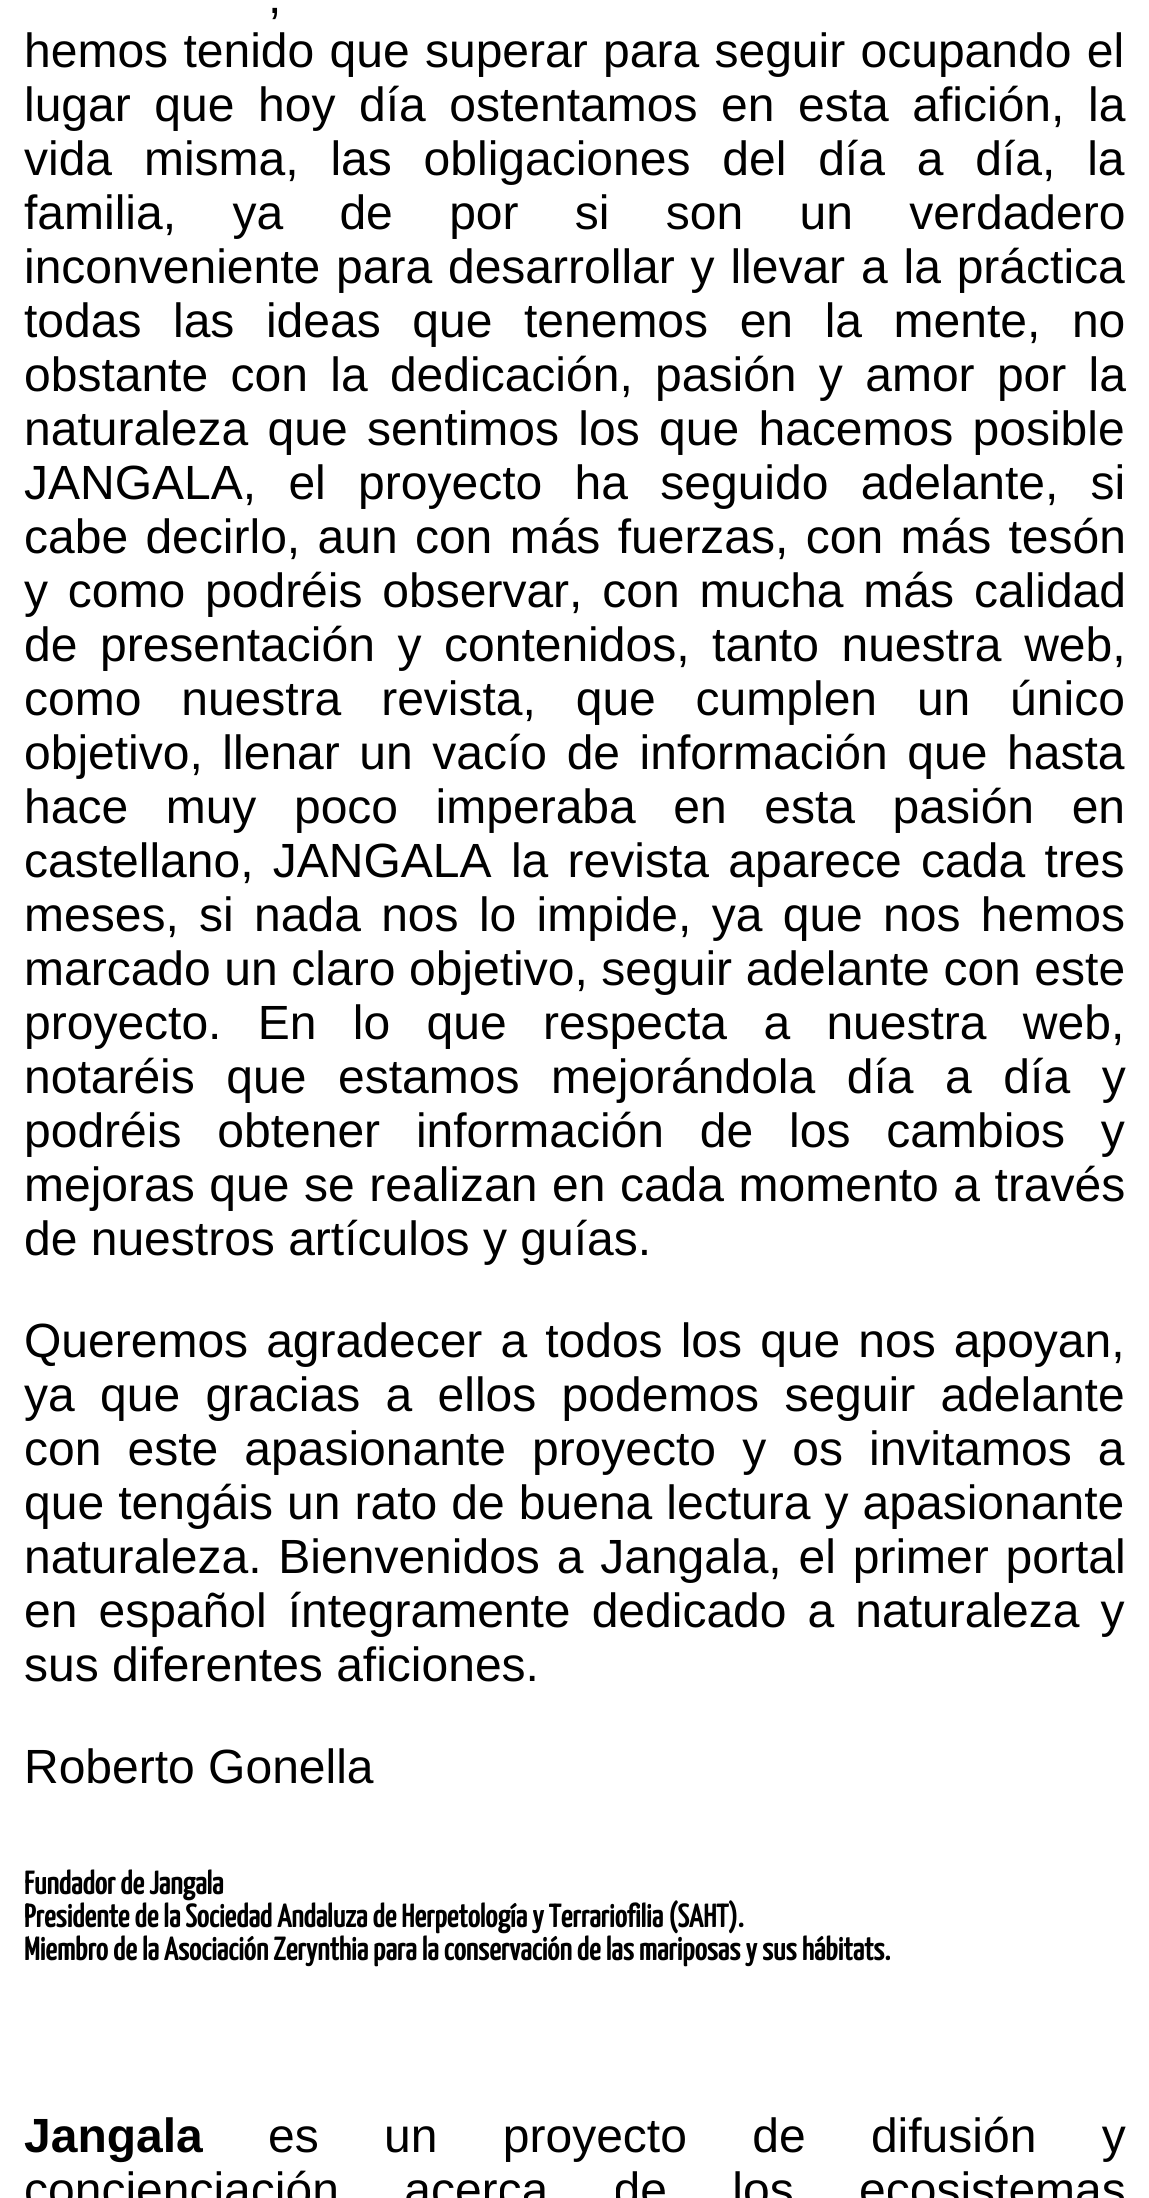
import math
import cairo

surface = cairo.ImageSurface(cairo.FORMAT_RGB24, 1149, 2198)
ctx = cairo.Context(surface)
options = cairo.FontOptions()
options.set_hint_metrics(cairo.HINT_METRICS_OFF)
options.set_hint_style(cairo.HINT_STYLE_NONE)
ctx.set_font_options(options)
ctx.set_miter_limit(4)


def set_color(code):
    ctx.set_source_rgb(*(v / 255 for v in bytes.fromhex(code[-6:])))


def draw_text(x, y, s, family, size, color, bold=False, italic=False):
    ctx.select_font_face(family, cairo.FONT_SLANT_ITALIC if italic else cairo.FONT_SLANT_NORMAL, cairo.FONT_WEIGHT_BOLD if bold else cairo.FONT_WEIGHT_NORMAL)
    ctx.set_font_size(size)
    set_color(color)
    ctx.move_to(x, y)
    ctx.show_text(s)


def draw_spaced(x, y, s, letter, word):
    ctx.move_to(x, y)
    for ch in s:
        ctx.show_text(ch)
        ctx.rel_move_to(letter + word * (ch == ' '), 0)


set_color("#ffffff")
ctx.paint()
ctx.select_font_face("Liberation Sans")
ctx.set_font_size(48)
set_color("#000000")
draw_spaced(268, 13, ",", 0, 18)
draw_spaced(24, 67, "hemos tenido que superar para seguir ocupando el", 0, 2)
draw_spaced(24, 121, "lugar que hoy día ostentamos en esta afición, la", 0, 10.25)
draw_spaced(24, 175, "vida misma, las obligaciones del día a día, la", 0, 18.5)
draw_spaced(24, 229, "familia, ya de por si son un verdadero", 0, 43)
draw_spaced(24, 283, "inconveniente para desarrollar y llevar a la práctica", 0, 2.5)
draw_spaced(24, 337, "todas las ideas que tenemos en la mente, no", 0, 18.25)
draw_spaced(24, 391, "obstante con la dedicación, pasión y amor por la", 0, 9)
draw_spaced(24, 445, "naturaleza que sentimos los que hacemos posible", 0, 6)
draw_spaced(24, 499, "JANGALA, el proyecto ha seguido adelante, si", 0, 19)
draw_spaced(24, 553, "cabe decirlo, aun con más fuerzas, con más tesón", 0, 4)
draw_spaced(24, 607, "y como podréis observar, con mucha más calidad", 0, 6.5)
draw_spaced(24, 661, "de presentación y contenidos, tanto nuestra web,", 0, 9.25)
draw_spaced(24, 715, "como nuestra revista, que cumplen un único", 0, 26.5)
draw_spaced(24, 769, "objetivo, llenar un vacío de información que hasta", 0, 6.25)
draw_spaced(24, 823, "hace muy poco imperaba en esta pasión en", 0, 24.25)
draw_spaced(24, 877, "castellano, JANGALA la revista aparece cada tres", 0, 6)
draw_spaced(24, 931, "meses, si nada nos lo impide, ya que nos hemos", 0, 7)
draw_spaced(24, 985, "marcado un claro objetivo, seguir adelante con este", 0, 0.25)
draw_spaced(24, 1039, "proyecto. En lo que respecta a nuestra web,", 0, 23)
draw_spaced(24, 1093, "notaréis que estamos mejorándola día a día y", 0, 18.25)
draw_spaced(24, 1147, "podréis obtener información de los cambios y", 0, 22.5)
draw_spaced(24, 1201, "mejoras que se realizan en cada momento a través", 0, 1.25)
draw_text(24, 1255, "de nuestros artículos y guías.", "Liberation Sans", 48, "#000000")
draw_spaced(24, 1357, "Queremos agradecer a todos los que nos apoyan,", 0, 4.75)
draw_spaced(24, 1411, "ya que gracias a ellos podemos seguir adelante", 0, 12)
draw_spaced(24, 1465, "con este apasionante proyecto y os invitamos a", 0, 12.75)
draw_spaced(24, 1519, "que tengáis un rato de buena lectura y apasionante", 0, 0.75)
draw_spaced(24, 1573, "naturaleza. Bienvenidos a Jangala, el primer portal", 0, 3.5)
draw_spaced(24, 1627, "en español íntegramente dedicado a naturaleza y", 0, 7.75)
draw_text(24, 1681, "sus diferentes aficiones.", "Liberation Sans", 48, "#000000")
draw_text(24, 1783, "Roberto Gonella", "Liberation Sans", 48, "#000000")
draw_text(24, 1894, "Fundador de Jangala", "Yanone Kaffeesatz", 32.15, "#000000", bold=True)
draw_text(24, 1927, "Presidente de la Sociedad Andaluza de Herpetología y Terrariofilia (SAHT).", "Yanone Kaffeesatz", 32.15, "#000000", bold=True)
draw_text(24, 1960, "Miembro de la Asociación Zerynthia para la conservación de las mariposas y sus hábitats.", "Yanone Kaffeesatz", 32.15, "#000000", bold=True)
draw_text(24, 2152, "Jangala", "Liberation Sans", 48, "#000000", bold=True)
ctx.select_font_face("Liberation Sans")
draw_spaced(268, 2152, "es un proyecto de difusión y", 0, 52)
draw_spaced(24, 2206, "concienciación acerca de los ecosistemas", 0, 52)
surface.write_to_png("output.png")
